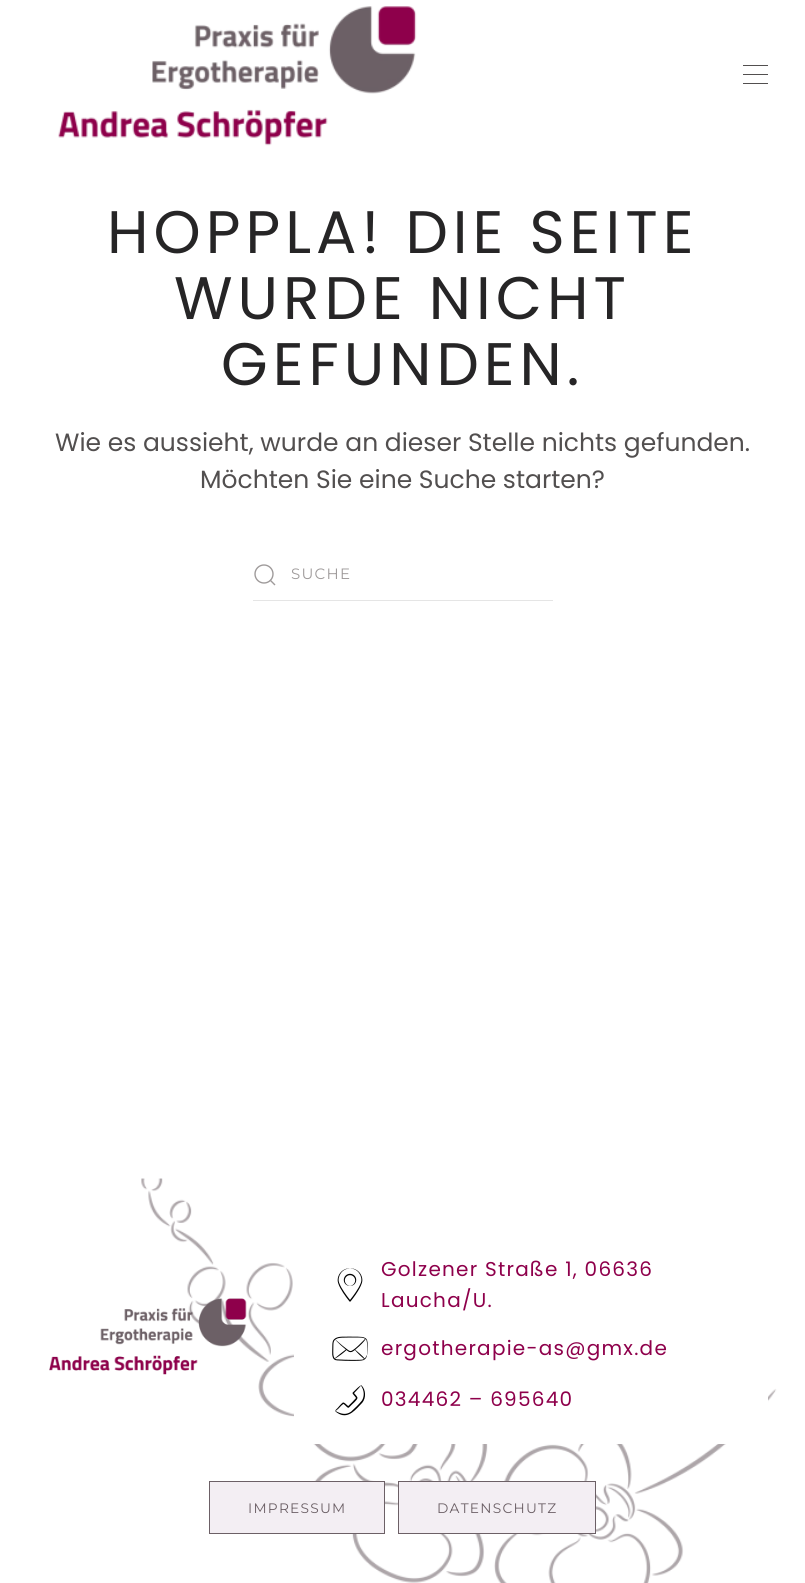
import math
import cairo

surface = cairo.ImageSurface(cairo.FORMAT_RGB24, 805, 1583)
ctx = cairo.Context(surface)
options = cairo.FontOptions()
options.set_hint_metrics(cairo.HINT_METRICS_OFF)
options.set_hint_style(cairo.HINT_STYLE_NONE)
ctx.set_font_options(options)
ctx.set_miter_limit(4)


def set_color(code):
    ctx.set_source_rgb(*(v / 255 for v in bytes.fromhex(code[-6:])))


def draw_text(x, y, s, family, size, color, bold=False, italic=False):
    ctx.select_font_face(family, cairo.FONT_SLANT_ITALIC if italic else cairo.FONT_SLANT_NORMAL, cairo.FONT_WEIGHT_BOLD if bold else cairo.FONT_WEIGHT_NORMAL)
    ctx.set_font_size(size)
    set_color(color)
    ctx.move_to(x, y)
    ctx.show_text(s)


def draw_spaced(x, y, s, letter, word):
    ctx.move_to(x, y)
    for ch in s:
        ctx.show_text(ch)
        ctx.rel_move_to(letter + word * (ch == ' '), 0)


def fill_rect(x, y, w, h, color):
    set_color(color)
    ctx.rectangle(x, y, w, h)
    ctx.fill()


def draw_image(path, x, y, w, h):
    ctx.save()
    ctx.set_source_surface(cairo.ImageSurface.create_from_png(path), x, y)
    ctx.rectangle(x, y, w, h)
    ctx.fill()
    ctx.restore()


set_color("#ffffff")
ctx.paint()
draw_image("assets/img1.png", 58, 6, 359, 140)
fill_rect(743, 65, 25, 1, "#524f4f")
fill_rect(743, 74, 25, 1, "#524f4f")
fill_rect(743, 83, 25, 1, "#524f4f")
ctx.select_font_face("Poppins")
ctx.set_font_size(60)
set_color("#262526")
draw_spaced(107, 253, "HOPPLA! DIE SEITE", 5, 0)
draw_spaced(174, 319, "WURDE NICHT", 5, 0)
draw_spaced(221, 385, "GEFUNDEN.", 5, 0)
draw_text(55, 451, "Wie es aussieht, wurde an dieser Stelle nichts gefunden.", "Poppins", 25, "#524f4f")
draw_text(200, 488, "Möchten Sie eine Suche starten?", "Poppins", 25, "#524f4f")
ctx.new_path()
ctx.arc(264, 574, 9, 0, 2 * math.pi)
set_color("#9f9b9b")
ctx.set_line_width(1.4)
ctx.stroke()
ctx.new_path()
ctx.move_to(270, 580)
ctx.line_to(275, 585)
ctx.close_path()
ctx.stroke()
fill_rect(253, 600, 300, 1, "#e5e5e5")
ctx.select_font_face("Montserrat Thin")
ctx.set_font_size(15)
set_color("#9f9b9b")
draw_spaced(291, 579, "SUCHE", 1.25, 0)
draw_image("assets/img2.png", 141, 1178, 636, 405)
draw_image("assets/img3.png", 49, 1298, 198, 77)
fill_rect(294, 1295, 474, 149, "#ffffff")
draw_image("assets/img4.png", 337, 1268, 26, 34)
ctx.select_font_face("Poppins")
ctx.set_font_size(20)
set_color("#8e004b")
draw_spaced(381, 1276, "Golzener Straße 1, 06636", 1.25, 0)
draw_spaced(381, 1307, "Laucha/U.", 1.25, 0)
draw_image("assets/img5.png", 332, 1336, 36, 25)
draw_spaced(381, 1355, "ergotherapie-as@gmx.de", 1.25, 0)
draw_image("assets/img6.png", 335, 1385, 30, 31)
draw_spaced(381, 1406, "034462 – 695640", 1.25, 0)
set_color("#f3eef3")
ctx.rectangle(209.5, 1481.5, 175, 52)
ctx.fill_preserve()
set_color("#6c6066")
ctx.set_line_width(1)
ctx.stroke()
ctx.select_font_face("Montserrat Thin")
ctx.set_font_size(13.75)
draw_spaced(248, 1513, "IMPRESSUM", 1.25, 0)
set_color("#f3eef3")
ctx.rectangle(398.5, 1481.5, 197, 52)
ctx.fill_preserve()
set_color("#6c6066")
ctx.stroke()
draw_spaced(437, 1513, "DATENSCHUTZ", 1.25, 0)
surface.write_to_png("output.png")
